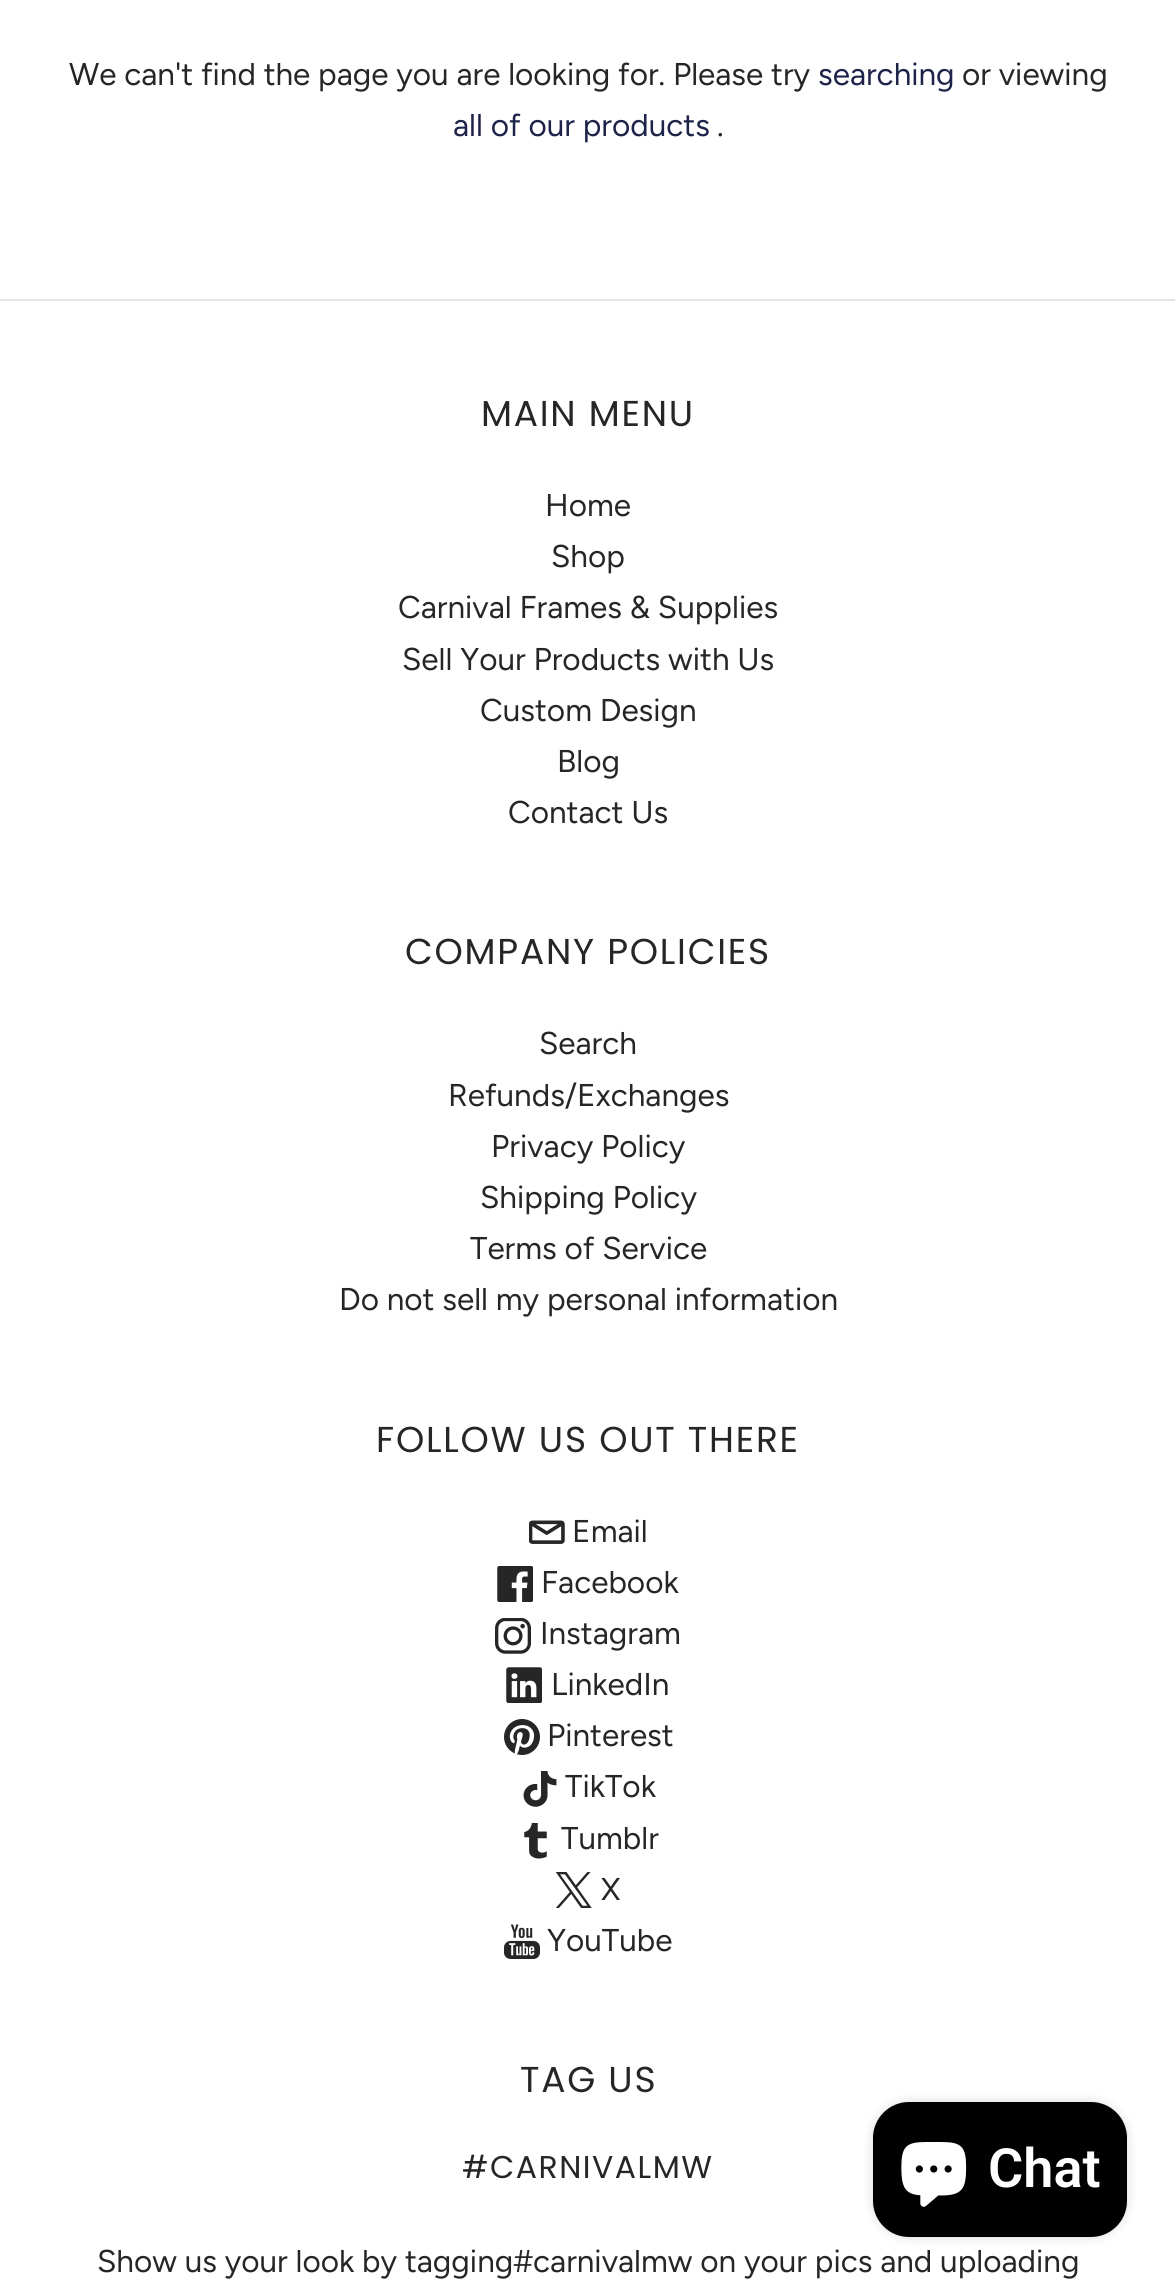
import math
import cairo

surface = cairo.ImageSurface(cairo.FORMAT_RGB24, 1175, 2282)
ctx = cairo.Context(surface)
options = cairo.FontOptions()
options.set_hint_metrics(cairo.HINT_METRICS_OFF)
options.set_hint_style(cairo.HINT_STYLE_NONE)
ctx.set_font_options(options)
ctx.set_miter_limit(4)


def set_color(code):
    ctx.set_source_rgb(*(v / 255 for v in bytes.fromhex(code[-6:])))


def draw_text(x, y, s, family, size, color, bold=False, italic=False):
    ctx.select_font_face(family, cairo.FONT_SLANT_ITALIC if italic else cairo.FONT_SLANT_NORMAL, cairo.FONT_WEIGHT_BOLD if bold else cairo.FONT_WEIGHT_NORMAL)
    ctx.set_font_size(size)
    set_color(color)
    ctx.move_to(x, y)
    ctx.show_text(s)


def draw_spaced(x, y, s, letter, word):
    ctx.move_to(x, y)
    for ch in s:
        ctx.show_text(ch)
        ctx.rel_move_to(letter + word * (ch == ' '), 0)


def fill_rect(x, y, w, h, color):
    set_color(color)
    ctx.rectangle(x, y, w, h)
    ctx.fill()


def rounded_rect(x, y, w, h, r):
    ctx.new_sub_path()
    for i, (u, v) in enumerate([(x + w - r, y + h - r), (x + r, y + h - r), (x + r, y + r), (x + w - r, y + r)]):
        ctx.arc(u, v, r, i * math.pi / 2, (i + 1) * math.pi / 2)
    ctx.close_path()


def draw_shadow(x, y, w, h, r, blur, alpha):
    ctx.push_group_with_content(cairo.CONTENT_ALPHA)
    ctx.set_operator(cairo.OPERATOR_SOURCE)
    for i in range(15, -16, -2):
        e = blur * i / 6
        if min(w, h) + 2 * e > 0:
            ctx.set_source_rgba(0, 0, 0, alpha * math.erfc((i - 1) / 8.5) / 2)
            rounded_rect(x - e, y - e, w + 2 * e, h + 2 * e, max(0, min(r + e + blur * .6, min(w, h) / 2 + e)))
            ctx.fill()
    ctx.mask(ctx.pop_group())


def draw_image(path, x, y, w, h):
    ctx.save()
    ctx.set_source_surface(cairo.ImageSurface.create_from_png(path), x, y)
    ctx.rectangle(x, y, w, h)
    ctx.fill()
    ctx.restore()


set_color("#ffffff")
ctx.paint()
draw_text(69, 85, "We can't find the page you are looking for. Please try", "Figtree", 31.5, "#262626")
draw_text(818, 85, "searching", "Figtree", 31.5, "#1d2349")
draw_text(962, 85, "or viewing", "Figtree", 31.5, "#262626")
draw_text(453, 136, "all of our products", "Figtree", 31.5, "#1d2349")
draw_text(717, 136, ".", "Figtree", 31.5, "#262626")
fill_rect(0, 299, 1175, 2, "#e4e4e4")
ctx.select_font_face("Poppins")
ctx.set_font_size(36)
set_color("#262626")
draw_spaced(481, 426, "MAIN MENU", 1.75, 0)
draw_text(545, 516, "Home", "Figtree", 31.5, "#262626")
draw_text(551, 567, "Shop", "Figtree", 31.5, "#262626")
draw_text(398, 618, "Carnival Frames & Supplies", "Figtree", 31.5, "#262626")
draw_text(402, 670, "Sell Your Products with Us", "Figtree", 31.5, "#262626")
draw_text(480, 721, "Custom Design", "Figtree", 31.5, "#262626")
draw_text(557, 772, "Blog", "Figtree", 31.5, "#262626")
draw_text(508, 823, "Contact Us", "Figtree", 31.5, "#262626")
ctx.select_font_face("Poppins")
ctx.set_font_size(36)
draw_spaced(405, 964, "COMPANY POLICIES", 1.75, 0)
draw_text(539, 1054, "Search", "Figtree", 31.5, "#262626")
draw_text(448, 1106, "Refunds/Exchanges", "Figtree", 31.5, "#262626")
draw_text(491, 1157, "Privacy Policy", "Figtree", 31.5, "#262626")
draw_text(480, 1208, "Shipping Policy", "Figtree", 31.5, "#262626")
draw_text(470, 1259, "Terms of Service", "Figtree", 31.5, "#262626")
draw_text(339, 1310, "Do not sell my personal information", "Figtree", 31.5, "#262626")
ctx.select_font_face("Poppins")
ctx.set_font_size(36)
draw_spaced(376, 1452, "FOLLOW US OUT THERE", 1.75, 0)
draw_image("assets/img1.png", 529, 1520, 36, 24)
draw_text(572, 1542, "Email", "Figtree", 31.5, "#262626")
draw_image("assets/img2.png", 497, 1566, 36, 36)
draw_text(541, 1593, "Facebook", "Figtree", 31.5, "#262626")
draw_image("assets/img3.png", 495, 1618, 36, 36)
draw_text(540, 1644, "Instagram", "Figtree", 31.5, "#262626")
draw_image("assets/img4.png", 506, 1667, 36, 36)
draw_text(551, 1695, "LinkedIn", "Figtree", 31.5, "#262626")
draw_image("assets/img5.png", 504, 1719, 36, 36)
draw_text(547, 1746, "Pinterest", "Figtree", 31.5, "#262626")
draw_image("assets/img6.png", 523, 1771, 34, 36)
draw_text(565, 1797, "TikTok", "Figtree", 31.5, "#262626")
draw_image("assets/img7.png", 524, 1823, 23, 36)
draw_text(561, 1849, "Tumblr", "Figtree", 31.5, "#262626")
draw_image("assets/img8.png", 556, 1872, 36, 36)
draw_text(601, 1900, "X", "Figtree", 31.5, "#262626")
draw_image("assets/img9.png", 504, 1924, 36, 35)
draw_text(547, 1951, "YouTube", "Figtree", 31.5, "#262626")
ctx.select_font_face("Poppins")
ctx.set_font_size(36)
draw_spaced(520, 2092, "TAG US", 1.75, 0)
ctx.set_font_size(31.5)
draw_spaced(462, 2178, "#CARNIVALMW", 1.5, 0)
draw_text(97, 2272, "Show us your look by tagging#carnivalmw on your pics and uploading", "Figtree", 31.5, "#262626")
set_color("#000000")
draw_shadow(873, 2102, 254, 135, 36, 5.5, 0.15)
set_color("#000000")
rounded_rect(873, 2102, 254, 135, 36)
ctx.fill()
draw_image("assets/img10.png", 901, 2142, 66, 65)
draw_text(988, 2187, "Chat", "Roboto SemiBold", 54, "#ffffff")
surface.write_to_png("output.png")
